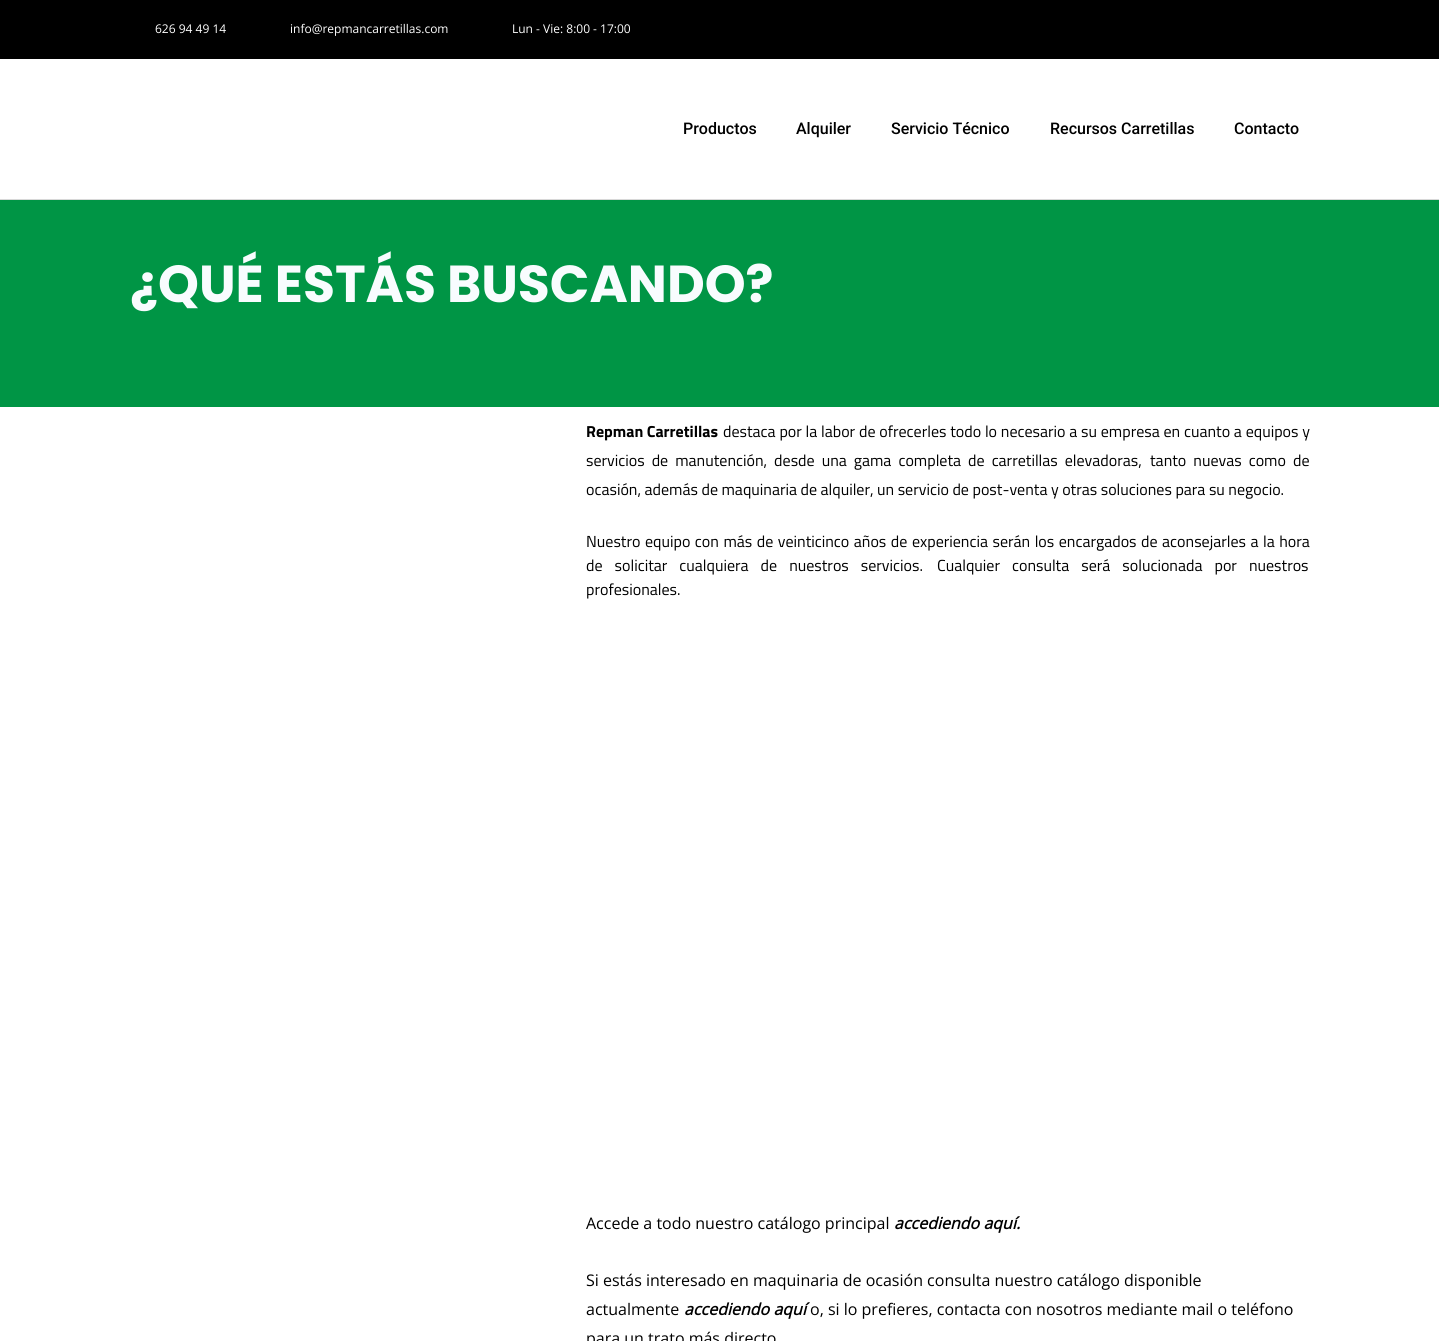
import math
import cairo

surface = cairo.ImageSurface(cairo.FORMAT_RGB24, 1439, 1341)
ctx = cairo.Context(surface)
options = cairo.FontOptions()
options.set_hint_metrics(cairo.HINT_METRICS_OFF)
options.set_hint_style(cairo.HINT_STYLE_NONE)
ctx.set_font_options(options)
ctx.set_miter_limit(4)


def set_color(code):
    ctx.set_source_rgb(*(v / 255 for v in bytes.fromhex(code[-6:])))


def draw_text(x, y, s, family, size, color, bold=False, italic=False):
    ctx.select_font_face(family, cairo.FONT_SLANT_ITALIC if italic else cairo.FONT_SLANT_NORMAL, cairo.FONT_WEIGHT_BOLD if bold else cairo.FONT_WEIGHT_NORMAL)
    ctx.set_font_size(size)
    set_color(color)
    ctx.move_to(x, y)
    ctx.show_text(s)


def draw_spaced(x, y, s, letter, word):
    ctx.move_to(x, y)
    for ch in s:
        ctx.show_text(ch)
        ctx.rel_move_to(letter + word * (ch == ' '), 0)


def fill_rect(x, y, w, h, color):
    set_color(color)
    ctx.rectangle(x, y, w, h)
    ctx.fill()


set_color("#ffffff")
ctx.paint()
fill_rect(0, 0, 1439, 59, "#000000")
draw_text(155, 33, "626 94 49 14", "Open Sans", 12, "#ffffff")
draw_text(290, 33, "info@repmancarretillas.com", "Open Sans", 12, "#ffffff")
draw_text(512, 33, "Lun - Vie: 8:00 - 17:00", "Open Sans", 12, "#ffffff")
fill_rect(0, 199, 1439, 1, "#d8d8d8")
draw_text(683, 134, "Productos", "Roboto Medium", 16, "#000000")
draw_text(796, 134, "Alquiler", "Roboto Medium", 16, "#000000")
draw_text(891, 134, "Servicio Técnico", "Roboto Medium", 16, "#000000")
draw_text(1050, 134, "Recursos Carretillas", "Roboto Medium", 16, "#000000")
draw_text(1234, 134, "Contacto", "Roboto Medium", 16, "#000000")
fill_rect(0, 200, 1439, 207, "#009545")
draw_text(130, 302, "¿QUÉ ESTÁS BUSCANDO?", "Poppins", 52, "#f8fcfe", bold=True)
draw_text(586, 437, "Repman Carretillas", "Titillium Web", 16, "#000000", bold=True)
ctx.select_font_face("Titillium Web")
draw_spaced(723, 437, "destaca por la labor de ofrecerles todo lo necesario a su empresa en cuanto a equipos y", 0, 0.25)
draw_spaced(586, 466, "servicios de manutención, desde una gama completa de carretillas elevadoras,", 0, 3.5)
draw_spaced(1150, 466, "tanto nuevas como de", 0, 3.5)
draw_text(586, 495, "ocasión, además de maquinaria de alquiler, un servicio de post-venta y otras soluciones para su negocio.", "Titillium Web", 16, "#000000")
draw_spaced(586, 547, "Nuestro equipo con más de veinticinco años de experiencia serán los encargados de aconsejarles a la hora", 0, 1)
draw_spaced(586, 571, "de solicitar cualquiera de nuestros servicios.", 0, 8.5)
draw_spaced(937, 571, "Cualquier consulta será solucionada por nuestros", 0, 8.5)
draw_text(586, 595, "profesionales.", "Titillium Web", 16, "#000000")
draw_text(586, 1229, "Accede a todo nuestro catálogo principal", "Open Sans", 16, "#000000")
draw_text(894, 1229, "accediendo aquí.", "Open Sans", 16, "#000000", bold=True, italic=True)
draw_text(586, 1286, "Si estás interesado en maquinaria de ocasión consulta nuestro catálogo disponible", "Open Sans", 16, "#000000")
draw_text(586, 1315, "actualmente", "Open Sans", 16, "#000000")
draw_text(684, 1315, "accediendo aquí", "Open Sans", 16, "#000000", bold=True, italic=True)
draw_text(810, 1315, "o, si lo prefieres, contacta con nosotros mediante mail o teléfono", "Open Sans", 16, "#000000")
draw_text(586, 1344, "para un trato más directo", "Open Sans", 16, "#000000")
surface.write_to_png("output.png")
